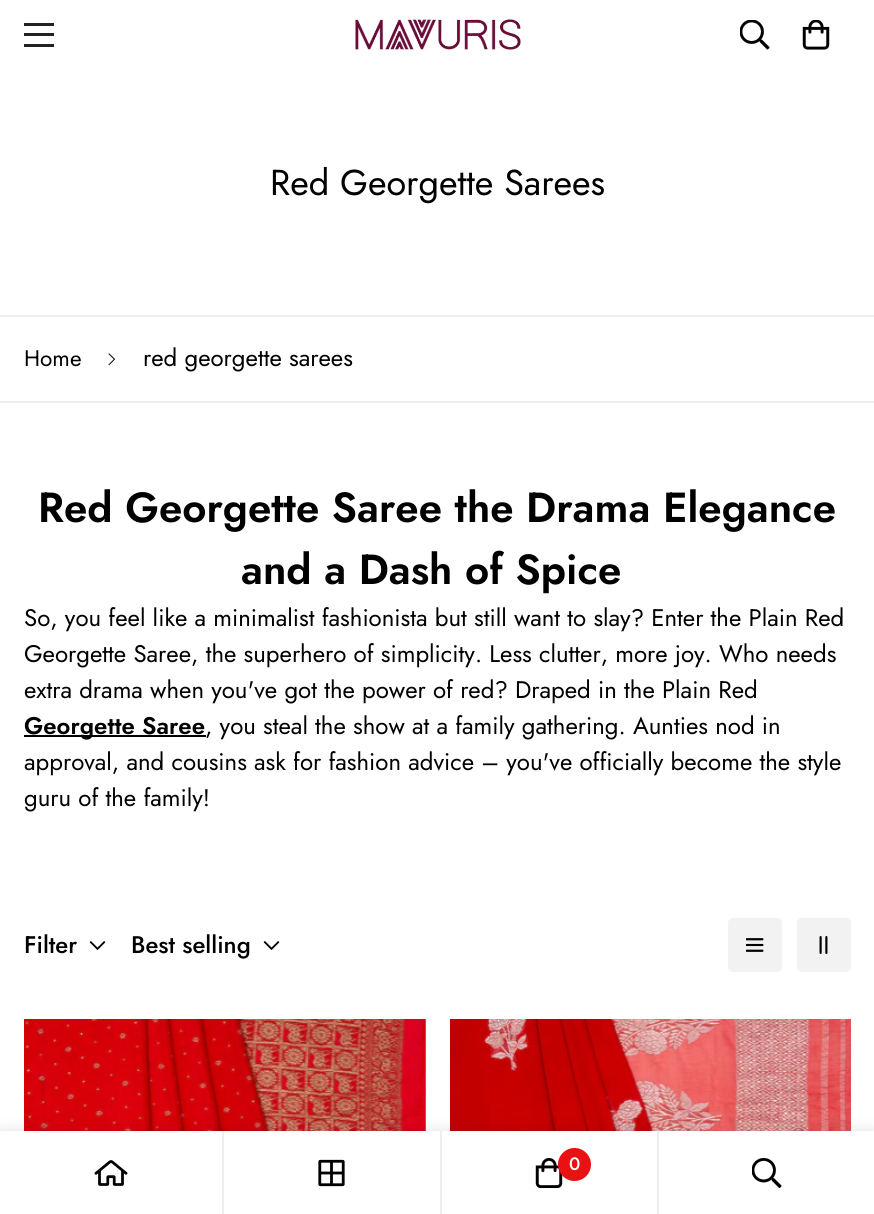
import math
import cairo

surface = cairo.ImageSurface(cairo.FORMAT_RGB24, 874, 1214)
ctx = cairo.Context(surface)
options = cairo.FontOptions()
options.set_hint_metrics(cairo.HINT_METRICS_OFF)
options.set_hint_style(cairo.HINT_STYLE_NONE)
ctx.set_font_options(options)
ctx.set_miter_limit(4)


def set_color(code):
    ctx.set_source_rgb(*(v / 255 for v in bytes.fromhex(code[-6:])))


def draw_text(x, y, s, family, size, color, bold=False, italic=False):
    ctx.select_font_face(family, cairo.FONT_SLANT_ITALIC if italic else cairo.FONT_SLANT_NORMAL, cairo.FONT_WEIGHT_BOLD if bold else cairo.FONT_WEIGHT_NORMAL)
    ctx.set_font_size(size)
    set_color(color)
    ctx.move_to(x, y)
    ctx.show_text(s)


def fill_rect(x, y, w, h, color):
    set_color(color)
    ctx.rectangle(x, y, w, h)
    ctx.fill()


def rounded_rect(x, y, w, h, r):
    ctx.new_sub_path()
    for i, (u, v) in enumerate([(x + w - r, y + h - r), (x + r, y + h - r), (x + r, y + r), (x + w - r, y + r)]):
        ctx.arc(u, v, r, i * math.pi / 2, (i + 1) * math.pi / 2)
    ctx.close_path()


def draw_shadow(x, y, w, h, r, blur, alpha):
    ctx.push_group_with_content(cairo.CONTENT_ALPHA)
    ctx.set_operator(cairo.OPERATOR_SOURCE)
    for i in range(15, -16, -2):
        e = blur * i / 6
        if min(w, h) + 2 * e > 0:
            ctx.set_source_rgba(0, 0, 0, alpha * math.erfc((i - 1) / 8.5) / 2)
            rounded_rect(x - e, y - e, w + 2 * e, h + 2 * e, max(0, min(r + e + blur * .6, min(w, h) / 2 + e)))
            ctx.fill()
    ctx.mask(ctx.pop_group())


def draw_image(path, x, y, w, h):
    ctx.save()
    ctx.set_source_surface(cairo.ImageSurface.create_from_png(path), x, y)
    ctx.rectangle(x, y, w, h)
    ctx.fill()
    ctx.restore()


set_color("#ffffff")
ctx.paint()
fill_rect(24, 33, 30, 3, "#222222")
fill_rect(24, 23, 30, 3, "#222222")
fill_rect(24, 44, 30, 3, "#222222")
draw_image("assets/img1.png", 355, 19, 166, 31)
draw_image("assets/img2.png", 740, 20, 30, 30)
draw_image("assets/img3.png", 802, 20, 28, 30)
draw_text(270, 195, "Red Georgette Sarees", "Jost", 36, "#000000")
fill_rect(0, 315, 874, 2, "#eeeeee")
fill_rect(0, 401, 874, 2, "#eeeeee")
draw_text(24, 366, "Home", "Jost", 22.5, "#000000")
draw_image("assets/img4.png", 108, 353, 7, 13)
draw_text(143, 366, "red georgette sarees", "Jost", 24, "#000000")
draw_text(38, 522, "Red Georgette Saree the Drama Elegance", "Jost SemiBold", 42, "#000000")
draw_text(241, 584, "and a Dash of Spice", "Jost SemiBold", 42, "#000000")
draw_text(24, 626, "So, you feel like a minimalist fashionista but still want to slay? Enter the Plain Red", "Jost", 24, "#000000")
draw_text(24, 662, "Georgette Saree, the superhero of simplicity. Less clutter, more joy. Who needs", "Jost", 24, "#000000")
draw_text(24, 698, "extra drama when you've got the power of red? Draped in the Plain Red", "Jost", 24, "#000000")
fill_rect(24, 735, 182, 2, "#000000")
draw_text(24, 734, "Georgette Saree", "Jost SemiBold", 24, "#000000")
draw_text(205, 734, ", you steal the show at a family gathering. Aunties nod in", "Jost", 24, "#000000")
draw_text(24, 770, "approval, and cousins ask for fashion advice – you've officially become the style", "Jost", 24, "#000000")
draw_text(24, 806, "guru of the family!", "Jost", 24, "#000000")
draw_text(24, 953, "Filter", "Jost Medium", 24, "#000000")
draw_image("assets/img5.png", 89, 941, 17, 9)
draw_text(131, 953, "Best selling", "Jost Medium", 24, "#000000")
draw_image("assets/img5.png", 263, 941, 17, 9)
set_color("#f2f2f2")
rounded_rect(728, 918, 54, 54, 5)
ctx.fill()
draw_image("assets/img6.png", 746, 938, 18, 14)
rounded_rect(797, 918, 54, 54, 5)
ctx.fill()
draw_image("assets/img7.png", 819, 936, 9, 18)
draw_image("assets/img8.png", 24, 1019, 402, 112)
draw_image("assets/img9.png", 450, 1019, 401, 112)
set_color("#000000")
draw_shadow(0, 1131, 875, 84, 0, 7.5, 0.11)
fill_rect(0, 1131, 874, 83, "#ffffff")
fill_rect(222, 1131, 2, 83, "#eeeeee")
draw_image("assets/img10.png", 94, 1160, 34, 26)
fill_rect(440, 1131, 2, 83, "#eeeeee")
draw_image("assets/img11.png", 318, 1159, 27, 28)
fill_rect(657, 1131, 2, 83, "#eeeeee")
draw_image("assets/img12.png", 535, 1158, 28, 30)
set_color("#e91111")
ctx.arc(574.5, 1164.5, 16.5, 0, 2 * math.pi)
ctx.fill()
draw_text(569, 1170, "0", "Jost Medium", 18, "#ffffff")
draw_image("assets/img13.png", 752, 1158, 30, 30)
surface.write_to_png("output.png")
